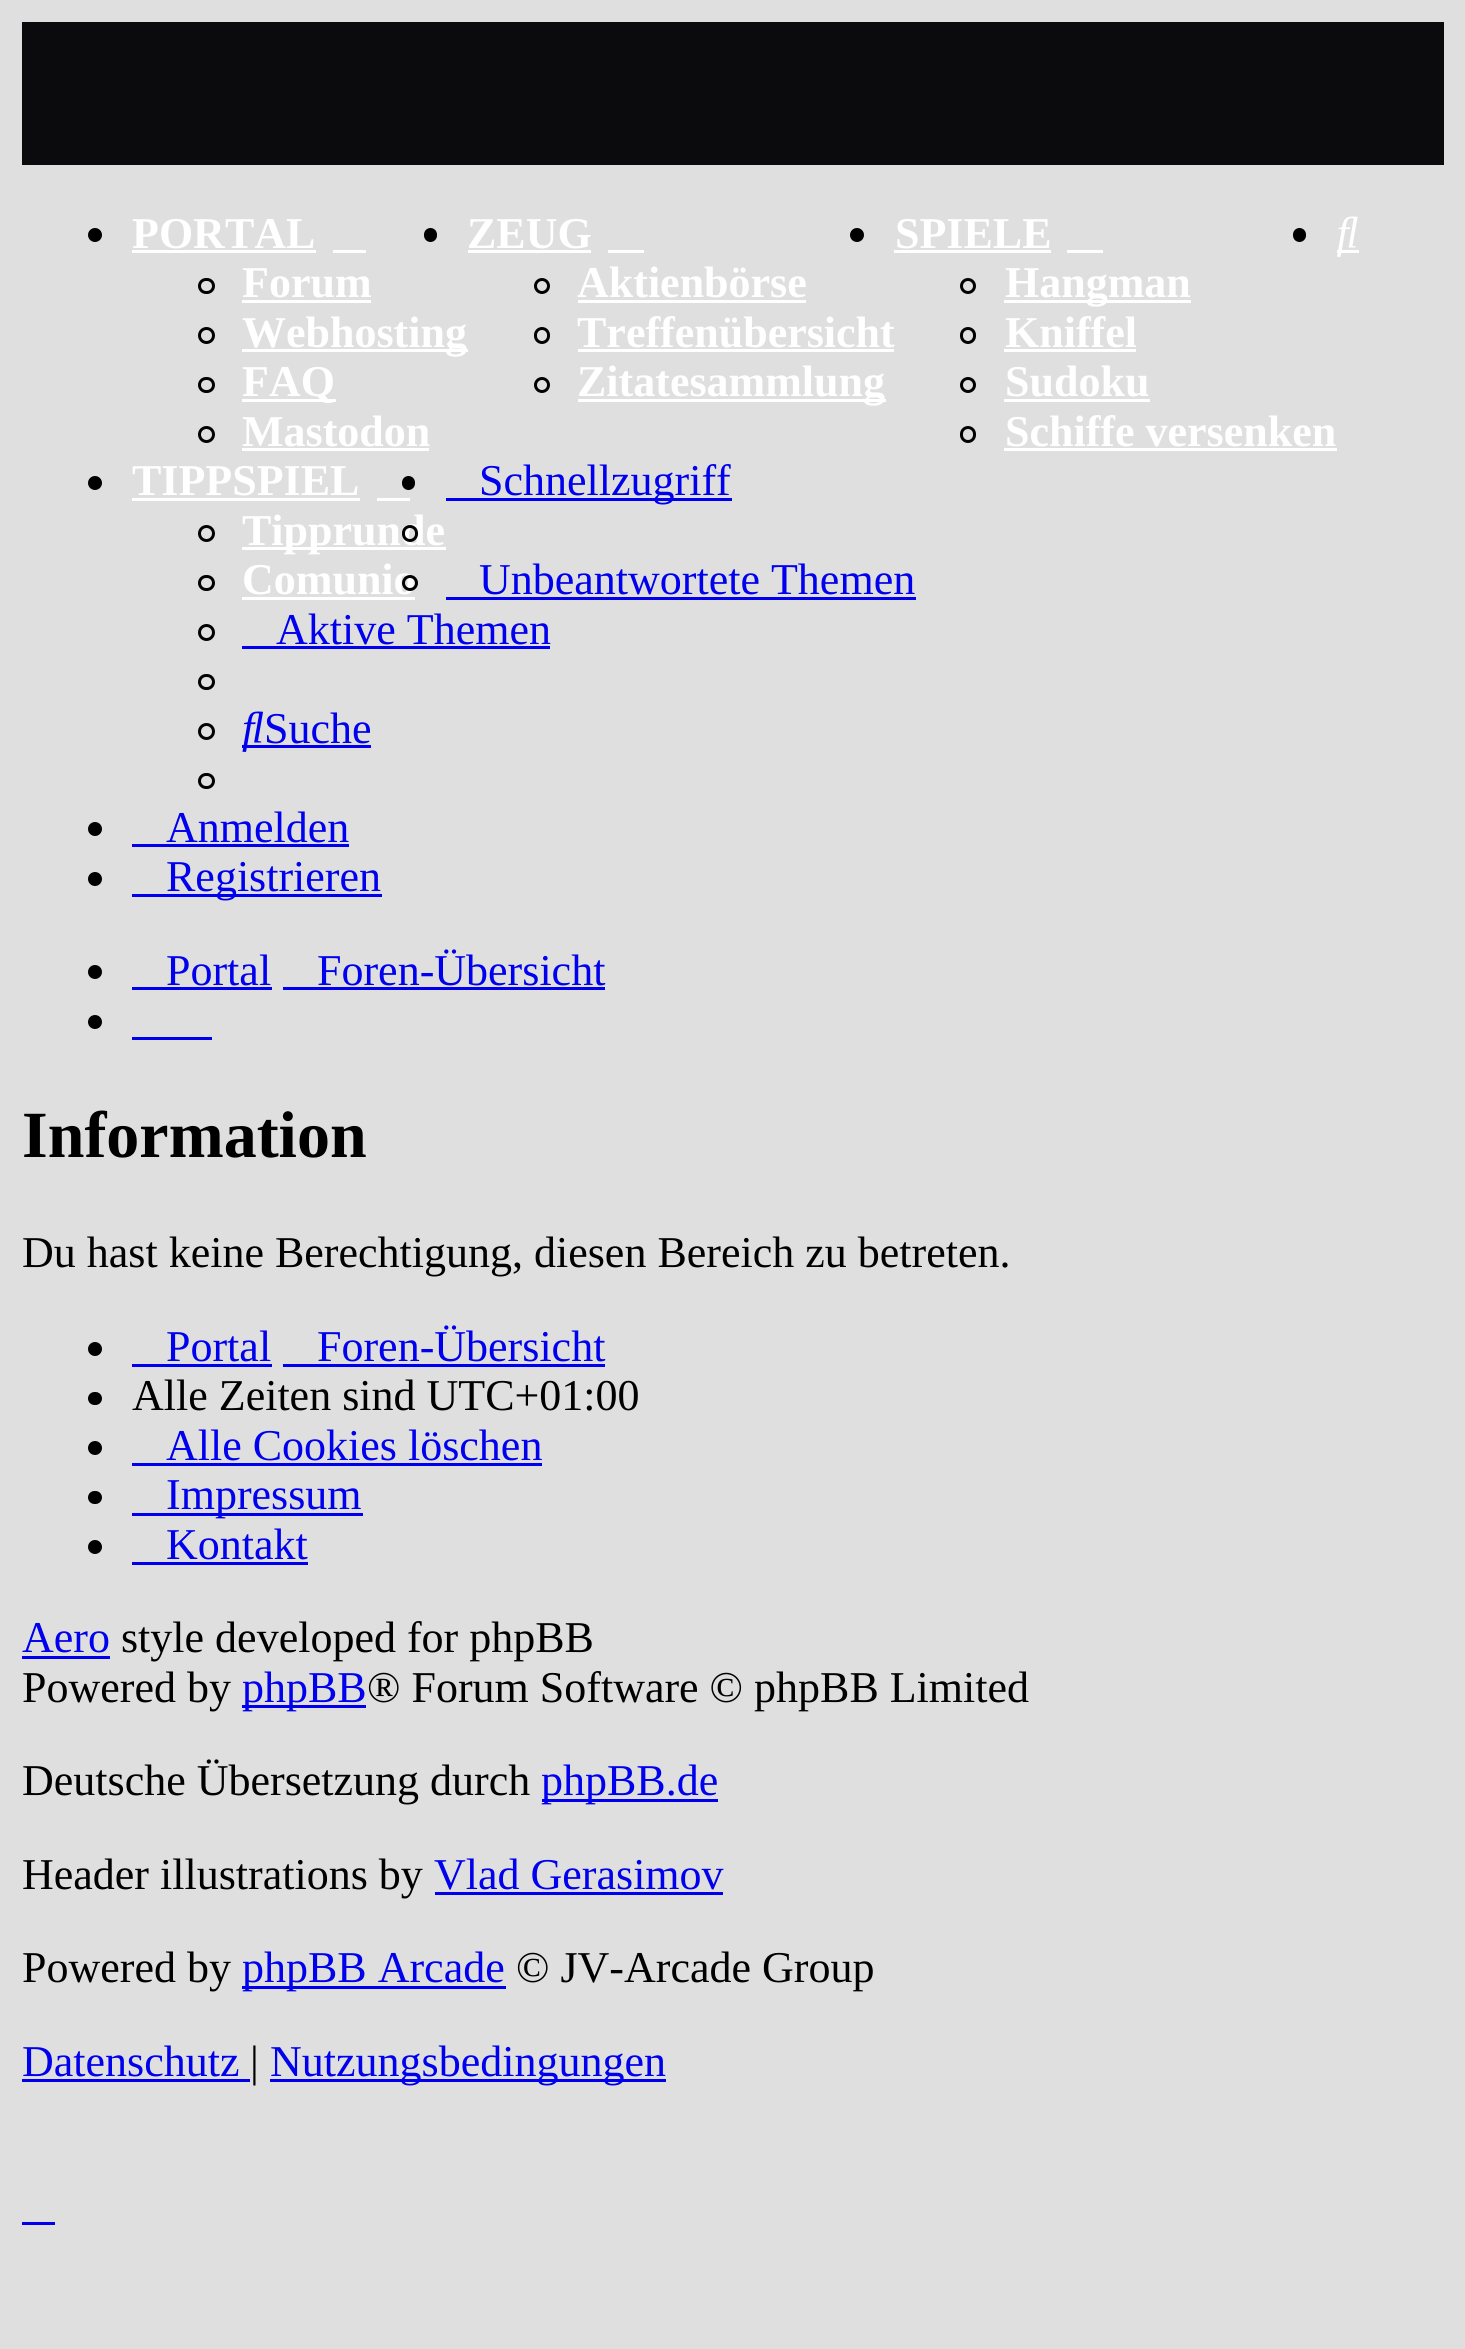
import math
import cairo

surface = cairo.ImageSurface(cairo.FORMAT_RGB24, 1465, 2349)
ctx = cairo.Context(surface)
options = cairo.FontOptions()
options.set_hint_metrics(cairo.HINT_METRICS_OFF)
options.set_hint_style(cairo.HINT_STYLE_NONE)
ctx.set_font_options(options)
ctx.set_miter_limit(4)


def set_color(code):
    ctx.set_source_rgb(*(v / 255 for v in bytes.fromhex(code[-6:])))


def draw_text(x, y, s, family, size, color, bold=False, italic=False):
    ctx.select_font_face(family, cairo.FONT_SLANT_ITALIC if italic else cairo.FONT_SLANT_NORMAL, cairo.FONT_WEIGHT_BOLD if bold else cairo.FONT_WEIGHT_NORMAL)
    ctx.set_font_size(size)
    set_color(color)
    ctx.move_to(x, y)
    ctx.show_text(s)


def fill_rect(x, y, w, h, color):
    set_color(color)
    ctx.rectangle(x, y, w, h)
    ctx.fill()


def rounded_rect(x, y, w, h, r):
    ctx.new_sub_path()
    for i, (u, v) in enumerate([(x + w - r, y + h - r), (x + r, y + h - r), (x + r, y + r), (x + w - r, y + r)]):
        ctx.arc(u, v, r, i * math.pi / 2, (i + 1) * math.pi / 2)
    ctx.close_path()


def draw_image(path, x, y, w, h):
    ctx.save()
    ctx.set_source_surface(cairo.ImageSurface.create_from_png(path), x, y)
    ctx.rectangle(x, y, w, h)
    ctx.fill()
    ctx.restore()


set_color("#dfdfdf")
ctx.paint()
fill_rect(22, 22, 1422, 143, "#0b0b0e")
set_color("#000000")
ctx.arc(95, 235, 7, 0, 2 * math.pi)
ctx.fill()
draw_text(132, 248, "PORTAL", "Liberation Serif", 44, "#ffffff", bold=True)
fill_rect(132, 250, 184, 3, "#ffffff")
fill_rect(333, 250, 33, 3, "#ffffff")
rounded_rect(199.5, 279.5, 14, 13, 6.5)
set_color("#000000")
ctx.set_line_width(3)
ctx.stroke()
draw_text(242, 297, "Forum", "Liberation Serif", 44, "#ffffff", bold=True)
fill_rect(242, 300, 129, 3, "#ffffff")
ctx.new_path()
ctx.arc(206.5, 335.5, 7, 0, 2 * math.pi)
set_color("#000000")
ctx.stroke()
fill_rect(242, 349, 226, 3, "#ffffff")
draw_text(242, 347, "Webhosting", "Liberation Serif", 44, "#ffffff", bold=True)
rounded_rect(199.5, 378.5, 14, 13, 6.5)
set_color("#000000")
ctx.stroke()
fill_rect(242, 399, 94, 3, "#ffffff")
draw_text(242, 396, "FAQ", "Liberation Serif", 44, "#ffffff", bold=True)
ctx.new_path()
ctx.arc(206.5, 434.5, 7, 0, 2 * math.pi)
set_color("#000000")
ctx.stroke()
draw_text(242, 446, "Mastodon", "Liberation Serif", 44, "#ffffff", bold=True)
fill_rect(242, 448, 187, 3, "#ffffff")
set_color("#000000")
rounded_rect(424, 228, 13, 14, 6.5)
ctx.fill()
draw_text(467, 248, "ZEUG", "Liberation Serif", 44, "#ffffff", bold=True)
fill_rect(468, 250, 123, 3, "#ffffff")
fill_rect(608, 250, 36, 3, "#ffffff")
ctx.new_path()
ctx.arc(542, 286, 6.5, 0, 2 * math.pi)
set_color("#000000")
ctx.stroke()
draw_text(577, 297, "Aktienbörse", "Liberation Serif", 44, "#ffffff", bold=True)
fill_rect(578, 300, 228, 3, "#ffffff")
rounded_rect(535.5, 328.5, 13, 14, 6.5)
set_color("#000000")
ctx.stroke()
draw_text(577, 347, "Treffenübersicht", "Liberation Serif", 44, "#ffffff", bold=True)
fill_rect(578, 349, 316, 3, "#ffffff")
ctx.new_path()
ctx.arc(542, 385, 6.5, 0, 2 * math.pi)
set_color("#000000")
ctx.stroke()
fill_rect(578, 399, 308, 3, "#ffffff")
draw_text(577, 396, "Zitatesammlung", "Liberation Serif", 44, "#ffffff", bold=True)
set_color("#000000")
rounded_rect(1293, 228, 13, 14, 6.5)
ctx.fill()
fill_rect(1337, 250, 22, 3, "#ffffff")
draw_image("assets/img1.png", 1337, 216, 21, 41)
set_color("#000000")
ctx.arc(857, 235, 7, 0, 2 * math.pi)
ctx.fill()
draw_text(895, 248, "SPIELE", "Liberation Serif", 44, "#ffffff", bold=True)
fill_rect(894, 250, 157, 3, "#ffffff")
fill_rect(1067, 250, 36, 3, "#ffffff")
ctx.new_path()
ctx.arc(968, 286, 6.5, 0, 2 * math.pi)
set_color("#000000")
ctx.stroke()
fill_rect(1004, 300, 187, 3, "#ffffff")
draw_text(1005, 297, "Hangman", "Liberation Serif", 44, "#ffffff", bold=True)
rounded_rect(961.5, 328.5, 13, 14, 6.5)
set_color("#000000")
ctx.stroke()
draw_text(1005, 347, "Kniffel", "Liberation Serif", 44, "#ffffff", bold=True)
fill_rect(1004, 349, 132, 3, "#ffffff")
ctx.new_path()
ctx.arc(968, 385, 6.5, 0, 2 * math.pi)
set_color("#000000")
ctx.stroke()
draw_text(1005, 396, "Sudoku", "Liberation Serif", 44, "#ffffff", bold=True)
fill_rect(1004, 399, 146, 3, "#ffffff")
rounded_rect(961.5, 427.5, 13, 14, 6.5)
set_color("#000000")
ctx.stroke()
draw_text(1005, 446, "Schiffe versenken", "Liberation Serif", 44, "#ffffff", bold=True)
fill_rect(1004, 448, 333, 3, "#ffffff")
set_color("#000000")
ctx.new_path()
ctx.arc(95, 483, 7, 0, 2 * math.pi)
ctx.fill()
draw_text(132, 495, "TIPPSPIEL", "Liberation Serif", 44, "#ffffff", bold=True)
fill_rect(132, 498, 228, 3, "#ffffff")
fill_rect(377, 498, 33, 3, "#ffffff")
ctx.new_path()
ctx.arc(206.5, 533.5, 7, 0, 2 * math.pi)
set_color("#000000")
ctx.stroke()
fill_rect(242, 547, 204, 3, "#ffffff")
draw_text(242, 545, "Tipprunde", "Liberation Serif", 44, "#ffffff", bold=True)
rounded_rect(199.5, 576.5, 14, 13, 6.5)
set_color("#000000")
ctx.stroke()
draw_text(242, 594, "Comunio", "Liberation Serif", 44, "#ffffff", bold=True)
fill_rect(242, 597, 173, 3, "#ffffff")
set_color("#000000")
rounded_rect(402, 476, 13, 14, 6.5)
ctx.fill()
fill_rect(446, 498, 286, 3, "#0000ee")
draw_text(479, 495, "Schnellzugriff", "Liberation Serif", 44, "#0000ee")
rounded_rect(403.5, 526.5, 13, 14, 6.5)
set_color("#000000")
ctx.stroke()
ctx.arc(410, 583, 6.5, 0, 2 * math.pi)
ctx.stroke()
draw_text(479, 594, "Unbeantwortete Themen", "Liberation Serif", 44, "#0000ee")
fill_rect(446, 597, 470, 3, "#0000ee")
ctx.new_path()
ctx.arc(206.5, 632.5, 7, 0, 2 * math.pi)
set_color("#000000")
ctx.stroke()
draw_text(276, 644, "Aktive Themen", "Liberation Serif", 44, "#0000ee")
fill_rect(242, 646, 308, 3, "#0000ee")
rounded_rect(199.5, 675.5, 14, 13, 6.5)
set_color("#000000")
ctx.stroke()
ctx.arc(206.5, 731.5, 7, 0, 2 * math.pi)
ctx.stroke()
fill_rect(242, 745, 129, 3, "#0000ee")
draw_image("assets/img2.png", 242, 711, 21, 41)
draw_text(264, 743, "Suche", "Liberation Serif", 44, "#0000ee")
rounded_rect(199.5, 774.5, 14, 13, 6.5)
set_color("#000000")
ctx.stroke()
ctx.arc(95, 829, 7, 0, 2 * math.pi)
ctx.fill()
draw_text(166, 842, "Anmelden", "Liberation Serif", 44, "#0000ee")
fill_rect(132, 844, 217, 3, "#0000ee")
set_color("#000000")
ctx.new_path()
ctx.arc(95, 879, 7, 0, 2 * math.pi)
ctx.fill()
fill_rect(132, 894, 250, 3, "#0000ee")
draw_text(166, 891, "Registrieren", "Liberation Serif", 44, "#0000ee")
set_color("#000000")
ctx.new_path()
ctx.arc(95, 972, 7, 0, 2 * math.pi)
ctx.fill()
draw_text(166, 985, "Portal", "Liberation Serif", 44, "#0000ee")
fill_rect(132, 987, 140, 3, "#0000ee")
draw_text(317, 985, "Foren-Übersicht", "Liberation Serif", 44, "#0000ee")
fill_rect(283, 987, 322, 3, "#0000ee")
set_color("#000000")
ctx.new_path()
ctx.arc(95, 1022, 7, 0, 2 * math.pi)
ctx.fill()
fill_rect(132, 1037, 80, 3, "#0000ee")
draw_text(22, 1157, "Information", "Liberation Serif", 66, "#000000", bold=True)
draw_text(22, 1267, "Du hast keine Berechtigung, diesen Bereich zu betreten.", "Liberation Serif", 44, "#000000")
ctx.new_path()
ctx.arc(95, 1349, 7, 0, 2 * math.pi)
ctx.fill()
draw_text(166, 1361, "Portal", "Liberation Serif", 44, "#0000ee")
fill_rect(132, 1364, 140, 3, "#0000ee")
draw_text(317, 1361, "Foren-Übersicht", "Liberation Serif", 44, "#0000ee")
fill_rect(283, 1364, 322, 3, "#0000ee")
set_color("#000000")
rounded_rect(88, 1392, 14, 13, 6.5)
ctx.fill()
draw_text(132, 1410, "Alle Zeiten sind UTC+01:00", "Liberation Serif", 44, "#000000")
ctx.new_path()
ctx.arc(95, 1448, 7, 0, 2 * math.pi)
ctx.fill()
draw_text(166, 1460, "Alle Cookies löschen", "Liberation Serif", 44, "#0000ee")
fill_rect(132, 1463, 410, 3, "#0000ee")
set_color("#000000")
rounded_rect(88, 1491, 14, 13, 6.5)
ctx.fill()
fill_rect(132, 1513, 231, 3, "#0000ee")
draw_text(166, 1509, "Impressum", "Liberation Serif", 44, "#0000ee")
set_color("#000000")
ctx.new_path()
ctx.arc(95, 1547, 7, 0, 2 * math.pi)
ctx.fill()
draw_text(166, 1559, "Kontakt", "Liberation Serif", 44, "#0000ee")
fill_rect(132, 1562, 176, 3, "#0000ee")
draw_text(22, 1652, "Aero", "Liberation Serif", 44, "#0000ee")
fill_rect(22, 1656, 88, 3, "#0000ee")
draw_text(121, 1652, "style developed for phpBB", "Liberation Serif", 44, "#000000")
draw_text(22, 1702, "Powered by", "Liberation Serif", 44, "#000000")
fill_rect(242, 1705, 124, 3, "#0000ee")
draw_text(242, 1702, "phpBB", "Liberation Serif", 44, "#0000ee")
draw_text(367, 1702, "® Forum Software © phpBB Limited", "Liberation Serif", 44, "#000000")
draw_text(22, 1795, "Deutsche Übersetzung durch", "Liberation Serif", 44, "#000000")
fill_rect(542, 1799, 176, 3, "#0000ee")
draw_text(541, 1795, "phpBB.de", "Liberation Serif", 44, "#0000ee")
draw_text(22, 1889, "Header illustrations by", "Liberation Serif", 44, "#000000")
draw_text(434, 1889, "Vlad Gerasimov", "Liberation Serif", 44, "#0000ee")
fill_rect(435, 1892, 288, 3, "#0000ee")
draw_text(22, 1982, "Powered by", "Liberation Serif", 44, "#000000")
fill_rect(242, 1986, 264, 3, "#0000ee")
draw_text(242, 1982, "phpBB Arcade", "Liberation Serif", 44, "#0000ee")
draw_text(516, 1982, "© JV-Arcade Group", "Liberation Serif", 44, "#000000")
draw_text(22, 2076, "Datenschutz", "Liberation Serif", 44, "#0000ee")
fill_rect(22, 2079, 228, 3, "#0000ee")
draw_text(250, 2076, "|", "Liberation Serif", 44, "#000000")
fill_rect(270, 2079, 396, 3, "#0000ee")
draw_text(270, 2076, "Nutzungsbedingungen", "Liberation Serif", 44, "#0000ee")
fill_rect(22, 2222, 33, 3, "#0000ee")
surface.write_to_png("output.png")
